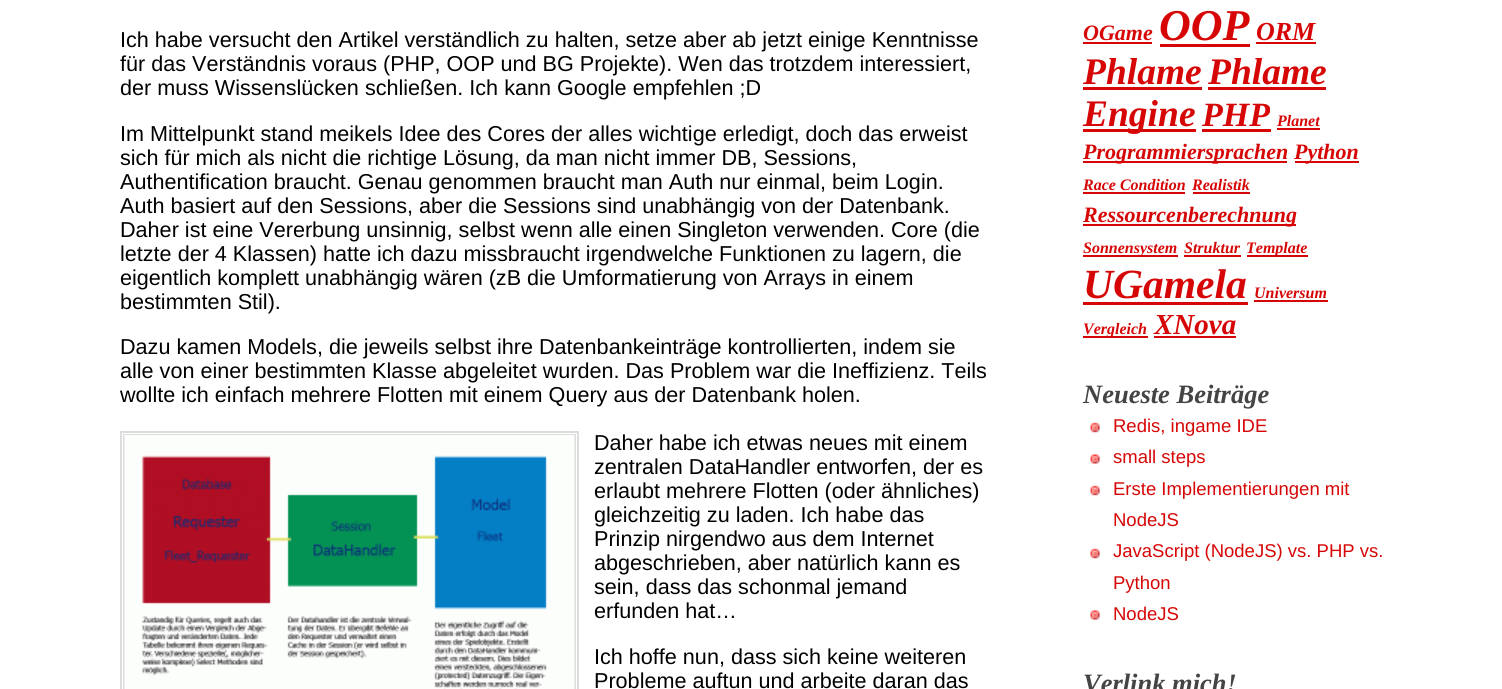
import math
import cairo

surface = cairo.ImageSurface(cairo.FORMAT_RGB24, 1502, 689)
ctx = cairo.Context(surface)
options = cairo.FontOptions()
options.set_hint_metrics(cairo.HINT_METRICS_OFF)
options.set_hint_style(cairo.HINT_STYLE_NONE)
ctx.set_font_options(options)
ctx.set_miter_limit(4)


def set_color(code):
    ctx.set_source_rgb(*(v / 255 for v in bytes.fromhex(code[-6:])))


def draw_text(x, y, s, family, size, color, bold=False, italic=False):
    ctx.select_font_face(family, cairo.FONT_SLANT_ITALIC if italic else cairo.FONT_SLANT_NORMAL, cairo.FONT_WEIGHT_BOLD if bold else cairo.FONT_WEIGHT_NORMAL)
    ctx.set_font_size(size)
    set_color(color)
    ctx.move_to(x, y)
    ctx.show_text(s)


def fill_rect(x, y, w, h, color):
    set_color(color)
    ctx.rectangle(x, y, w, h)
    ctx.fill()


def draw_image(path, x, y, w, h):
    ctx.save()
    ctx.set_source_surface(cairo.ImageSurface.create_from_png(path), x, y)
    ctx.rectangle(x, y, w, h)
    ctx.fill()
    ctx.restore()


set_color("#ffffff")
ctx.paint()
draw_text(120, 47, "Ich habe versucht den Artikel verständlich zu halten, setze aber ab jetzt einige Kenntnisse", "Liberation Sans", 21.6, "#000000")
draw_text(120, 71, "für das Verständnis voraus (PHP, OOP und BG Projekte). Wen das trotzdem interessiert,", "Liberation Sans", 21.6, "#000000")
draw_text(120, 95, "der muss Wissenslücken schließen. Ich kann Google empfehlen ;D", "Liberation Sans", 21.6, "#000000")
draw_text(120, 141, "Im Mittelpunkt stand meikels Idee des Cores der alles wichtige erledigt, doch das erweist", "Liberation Sans", 21.6, "#000000")
draw_text(120, 165, "sich für mich als nicht die richtige Lösung, da man nicht immer DB, Sessions,", "Liberation Sans", 21.6, "#000000")
draw_text(120, 189, "Authentification braucht. Genau genommen braucht man Auth nur einmal, beim Login.", "Liberation Sans", 21.6, "#000000")
draw_text(120, 213, "Auth basiert auf den Sessions, aber die Sessions sind unabhängig von der Datenbank.", "Liberation Sans", 21.6, "#000000")
draw_text(120, 237, "Daher ist eine Vererbung unsinnig, selbst wenn alle einen Singleton verwenden. Core (die", "Liberation Sans", 21.6, "#000000")
draw_text(120, 261, "letzte der 4 Klassen) hatte ich dazu missbraucht irgendwelche Funktionen zu lagern, die", "Liberation Sans", 21.6, "#000000")
draw_text(120, 285, "eigentlich komplett unabhängig wären (zB die Umformatierung von Arrays in einem", "Liberation Sans", 21.6, "#000000")
draw_text(120, 309, "bestimmten Stil).", "Liberation Sans", 21.6, "#000000")
draw_text(120, 354, "Dazu kamen Models, die jeweils selbst ihre Datenbankeinträge kontrollierten, indem sie", "Liberation Sans", 21.6, "#000000")
draw_text(120, 378, "alle von einer bestimmten Klasse abgeleitet wurden. Das Problem war die Ineffizienz. Teils", "Liberation Sans", 21.6, "#000000")
draw_text(120, 402, "wollte ich einfach mehrere Flotten mit einem Query aus der Datenbank holen.", "Liberation Sans", 21.6, "#000000")
ctx.rectangle(121, 432, 457, 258)
set_color("#dddddd")
ctx.stroke()
ctx.rectangle(124, 435, 451, 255)
ctx.stroke()
draw_image("assets/img1.png", 124, 435, 451, 254)
draw_text(594, 450, "Daher habe ich etwas neues mit einem", "Liberation Sans", 21.6, "#000000")
draw_text(594, 474, "zentralen DataHandler entworfen, der es", "Liberation Sans", 21.6, "#000000")
draw_text(594, 498, "erlaubt mehrere Flotten (oder ähnliches)", "Liberation Sans", 21.6, "#000000")
draw_text(594, 522, "gleichzeitig zu laden. Ich habe das", "Liberation Sans", 21.6, "#000000")
draw_text(594, 546, "Prinzip nirgendwo aus dem Internet", "Liberation Sans", 21.6, "#000000")
draw_text(594, 570, "abgeschrieben, aber natürlich kann es", "Liberation Sans", 21.6, "#000000")
draw_text(594, 594, "sein, dass das schonmal jemand", "Liberation Sans", 21.6, "#000000")
draw_text(594, 618, "erfunden hat…", "Liberation Sans", 21.6, "#000000")
draw_text(594, 664, "Ich hoffe nun, dass sich keine weiteren", "Liberation Sans", 21.6, "#000000")
draw_text(594, 688, "Probleme auftun und arbeite daran das", "Liberation Sans", 21.6, "#000000")
draw_text(1083, 40, "OGame", "Liberation Serif", 22, "#d70606", bold=True, italic=True)
fill_rect(1083, 42, 69, 2, "#d70606")
draw_text(1159, 40, "OOP", "Liberation Serif", 44, "#d70606", bold=True, italic=True)
fill_rect(1160, 44, 90, 3, "#d70606")
draw_text(1256, 40, "ORM", "Liberation Serif", 26, "#d70606", bold=True, italic=True)
fill_rect(1256, 42, 60, 2, "#d70606")
draw_text(1083, 84, "Phlame", "Liberation Serif", 37.5, "#d70606", bold=True, italic=True)
fill_rect(1083, 87, 119, 3, "#d70606")
draw_text(1208, 84, "Phlame", "Liberation Serif", 37.5, "#d70606", bold=True, italic=True)
fill_rect(1208, 87, 118, 3, "#d70606")
fill_rect(1083, 129, 113, 3, "#d70606")
draw_text(1083, 126, "Engine", "Liberation Serif", 37.5, "#d70606", bold=True, italic=True)
draw_text(1202, 126, "PHP", "Liberation Serif", 34, "#d70606", bold=True, italic=True)
fill_rect(1202, 129, 69, 3, "#d70606")
draw_text(1277, 126, "Planet", "Liberation Serif", 16, "#d70606", bold=True, italic=True)
fill_rect(1277, 128, 43, 2, "#d70606")
fill_rect(1083, 161, 204, 2, "#d70606")
draw_text(1083, 159, "Programmiersprachen", "Liberation Serif", 22, "#d70606", bold=True, italic=True)
fill_rect(1295, 161, 64, 2, "#d70606")
draw_text(1294, 159, "Python", "Liberation Serif", 22, "#d70606", bold=True, italic=True)
draw_text(1083, 190, "Race Condition", "Liberation Serif", 16, "#d70606", bold=True, italic=True)
fill_rect(1083, 192, 102, 2, "#d70606")
draw_text(1192, 190, "Realistik", "Liberation Serif", 16, "#d70606", bold=True, italic=True)
fill_rect(1193, 192, 57, 2, "#d70606")
fill_rect(1083, 224, 213, 2, "#d70606")
draw_text(1083, 222, "Ressourcenberechnung", "Liberation Serif", 22, "#d70606", bold=True, italic=True)
fill_rect(1083, 255, 95, 2, "#d70606")
draw_text(1083, 253, "Sonnensystem", "Liberation Serif", 16, "#d70606", bold=True, italic=True)
draw_text(1184, 253, "Struktur", "Liberation Serif", 16, "#d70606", bold=True, italic=True)
fill_rect(1184, 255, 57, 2, "#d70606")
fill_rect(1247, 255, 61, 2, "#d70606")
draw_text(1246, 253, "Template", "Liberation Serif", 16, "#d70606", bold=True, italic=True)
draw_text(1083, 298, "UGamela", "Liberation Serif", 41.5, "#d70606", bold=True, italic=True)
fill_rect(1083, 302, 165, 3, "#d70606")
draw_text(1254, 298, "Universum", "Liberation Serif", 16, "#d70606", bold=True, italic=True)
fill_rect(1254, 300, 74, 2, "#d70606")
fill_rect(1083, 336, 65, 2, "#d70606")
draw_text(1083, 334, "Vergleich", "Liberation Serif", 16, "#d70606", bold=True, italic=True)
draw_text(1154, 334, "XNova", "Liberation Serif", 29, "#d70606", bold=True, italic=True)
fill_rect(1154, 336, 82, 2, "#d70606")
draw_text(1083, 403, "Neueste Beiträge", "Liberation Serif", 26.5, "#444444", bold=True, italic=True)
draw_image("assets/img2.png", 1090, 422, 10, 11)
draw_text(1113, 432, "Redis, ingame IDE", "Liberation Sans", 18.5, "#d70606")
draw_image("assets/img3.png", 1090, 454, 10, 10)
draw_text(1113, 463, "small steps", "Liberation Sans", 18.5, "#d70606")
draw_image("assets/img2.png", 1090, 485, 10, 11)
draw_text(1113, 495, "Erste Implementierungen mit", "Liberation Sans", 18.5, "#d70606")
draw_text(1113, 526, "NodeJS", "Liberation Sans", 18.5, "#d70606")
draw_image("assets/img2.png", 1090, 548, 10, 11)
draw_text(1113, 557, "JavaScript (NodeJS) vs. PHP vs.", "Liberation Sans", 18.5, "#d70606")
draw_text(1113, 589, "Python", "Liberation Sans", 18.5, "#d70606")
draw_image("assets/img3.png", 1090, 610, 10, 10)
draw_text(1113, 620, "NodeJS", "Liberation Sans", 18.5, "#d70606")
draw_text(1083, 692, "Verlink mich!", "Liberation Serif", 26.5, "#444444", bold=True, italic=True)
surface.write_to_png("output.png")
